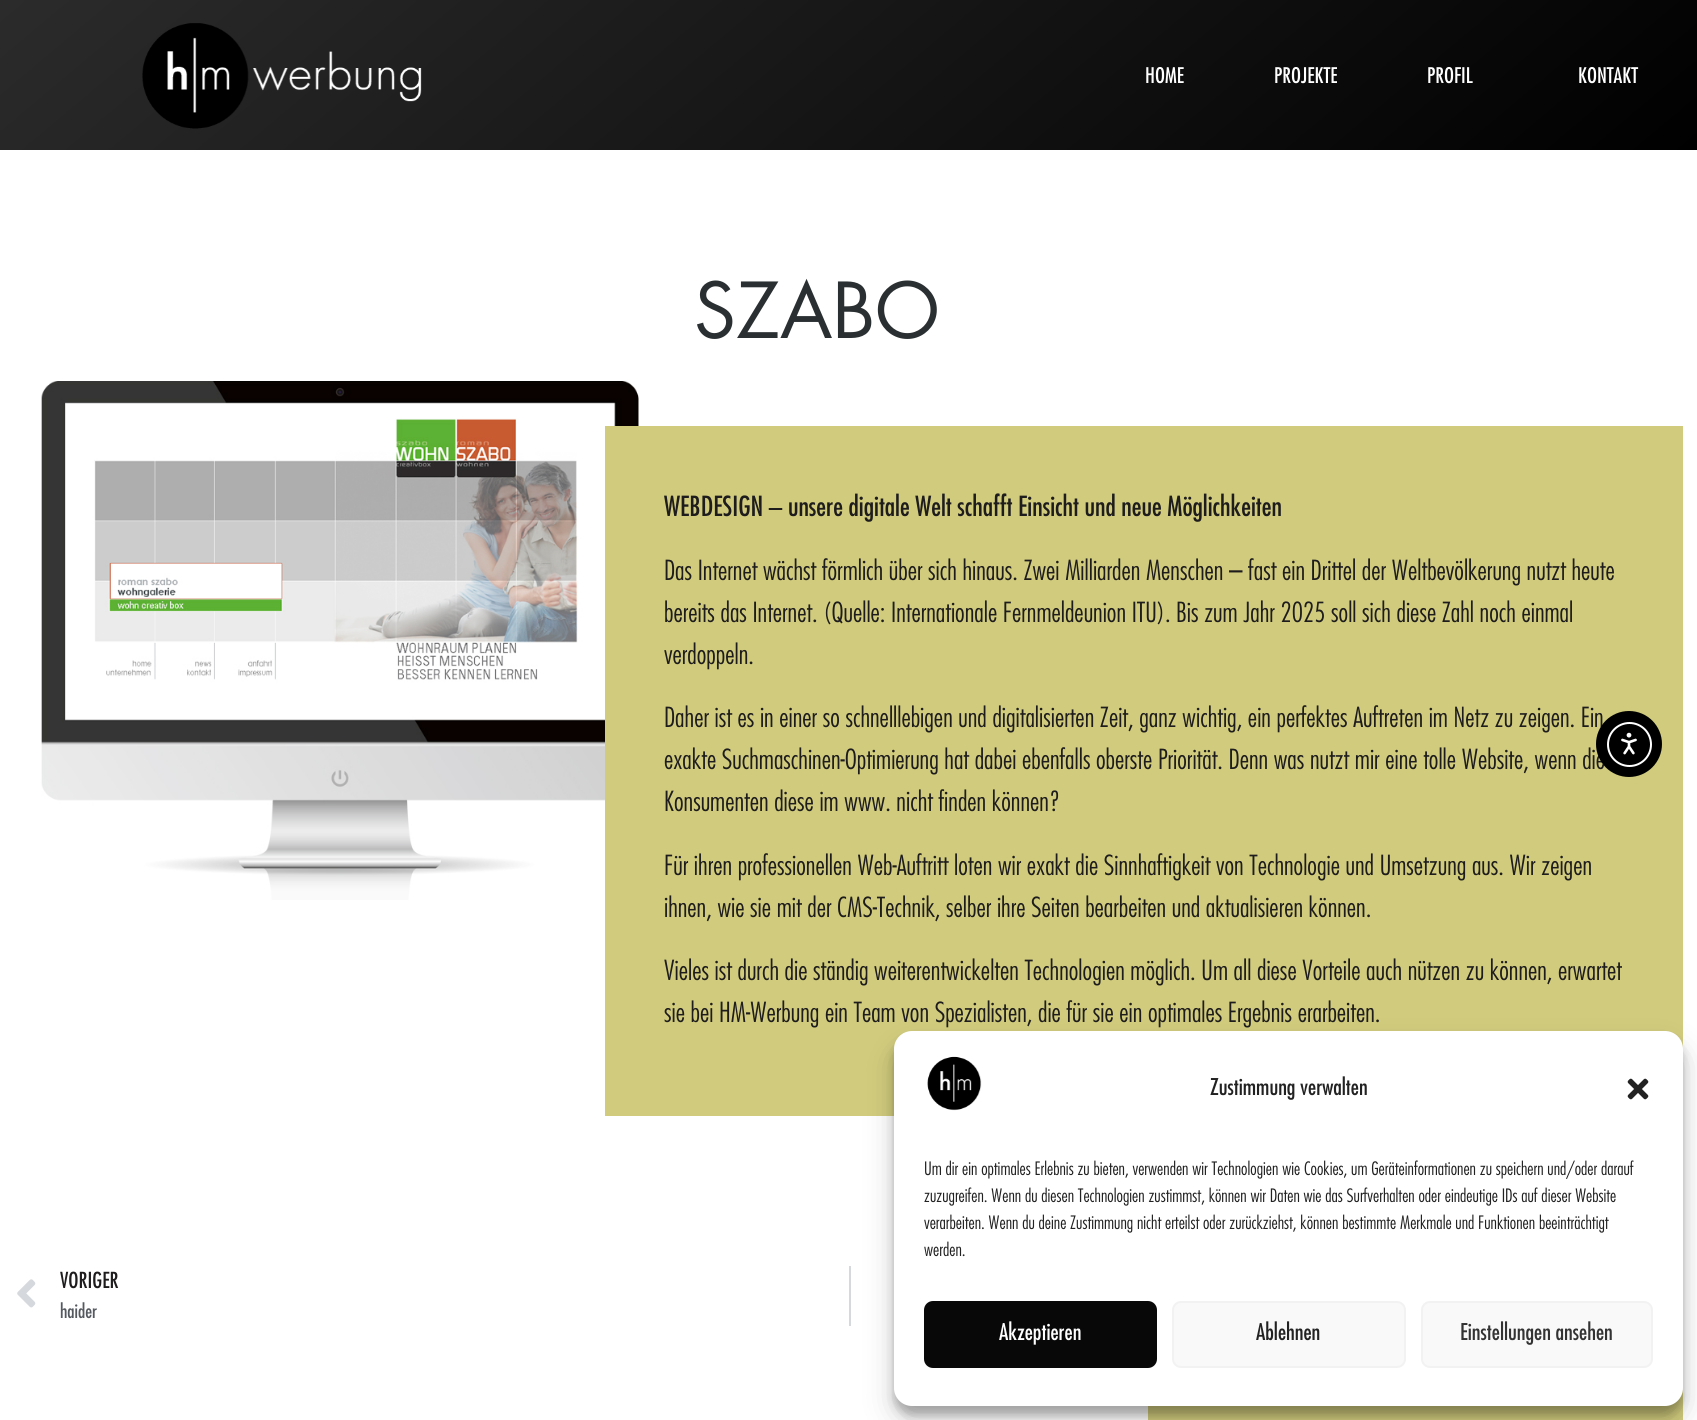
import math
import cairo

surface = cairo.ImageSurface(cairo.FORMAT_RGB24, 1697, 1420)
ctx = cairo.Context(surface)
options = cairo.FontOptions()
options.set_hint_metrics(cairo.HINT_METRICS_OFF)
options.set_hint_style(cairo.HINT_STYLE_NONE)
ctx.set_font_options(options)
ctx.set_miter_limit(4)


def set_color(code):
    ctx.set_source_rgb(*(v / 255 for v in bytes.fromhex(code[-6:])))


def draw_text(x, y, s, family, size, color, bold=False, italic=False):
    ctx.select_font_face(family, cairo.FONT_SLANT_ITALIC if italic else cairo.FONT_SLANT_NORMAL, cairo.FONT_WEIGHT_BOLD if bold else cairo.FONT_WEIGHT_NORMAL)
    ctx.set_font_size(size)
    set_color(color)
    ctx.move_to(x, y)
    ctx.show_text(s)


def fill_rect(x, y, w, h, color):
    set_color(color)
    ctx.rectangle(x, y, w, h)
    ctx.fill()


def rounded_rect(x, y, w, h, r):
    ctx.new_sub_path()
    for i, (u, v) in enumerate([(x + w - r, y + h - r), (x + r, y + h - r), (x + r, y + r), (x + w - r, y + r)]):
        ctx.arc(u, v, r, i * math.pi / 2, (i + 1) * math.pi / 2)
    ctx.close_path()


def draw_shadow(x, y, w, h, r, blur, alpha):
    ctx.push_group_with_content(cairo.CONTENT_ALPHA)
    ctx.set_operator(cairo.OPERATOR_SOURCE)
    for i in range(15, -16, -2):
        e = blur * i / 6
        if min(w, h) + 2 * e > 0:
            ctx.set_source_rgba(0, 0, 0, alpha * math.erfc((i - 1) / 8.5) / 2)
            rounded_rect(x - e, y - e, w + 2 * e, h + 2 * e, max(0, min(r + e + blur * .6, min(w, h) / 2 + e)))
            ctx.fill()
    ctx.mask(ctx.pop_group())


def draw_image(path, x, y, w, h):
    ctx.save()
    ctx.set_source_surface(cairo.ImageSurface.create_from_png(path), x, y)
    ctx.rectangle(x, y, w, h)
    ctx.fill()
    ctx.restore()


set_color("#ffffff")
ctx.paint()
gradient = cairo.LinearGradient(461, -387, 1237, 537)
gradient.add_color_stop_rgba(0, 0.169, 0.169, 0.169, 1)
gradient.add_color_stop_rgba(1, 0, 0, 0, 1)
ctx.set_source(gradient)
ctx.rectangle(0, 0, 1697, 150)
ctx.fill()
draw_image("assets/img1.png", 142, 23, 280, 106)
draw_text(1145, 83, "HOME", "Futura Medium", 21, "#ffffff")
draw_text(1274, 83, "PROJEKTE", "Futura Medium", 21, "#ffffff")
draw_text(1427, 83, "PROFIL", "Futura Medium", 21, "#ffffff")
draw_text(1578, 83, "KONTAKT", "Futura Medium", 21, "#ffffff")
draw_image("assets/img2.png", 41, 381, 598, 519)
draw_text(694, 338, "SZABO", "Futura", 75, "#2a2f31")
fill_rect(605, 426, 1078, 690, "#d1cc7d")
draw_text(664, 516, "WEBDESIGN – unsere digitale Welt schafft Einsicht und neue Möglichkeiten", "Futura Medium", 27, "#1e1c1c")
draw_text(664, 580, "Das Internet wächst förmlich über sich hinaus. Zwei Milliarden Menschen – fast ein Drittel der Weltbevölkerung nutzt heute", "Futura Light", 27, "#1e1c1c")
draw_text(664, 622, "bereits das Internet. (Quelle: Internationale Fernmeldeunion ITU). Bis zum Jahr 2025 soll sich diese Zahl noch einmal", "Futura Light", 27, "#1e1c1c")
draw_text(664, 664, "verdoppeln.", "Futura Light", 27, "#1e1c1c")
draw_text(664, 727, "Daher ist es in einer so schnelllebigen und digitalisierten Zeit, ganz wichtig, ein perfektes Auftreten im Netz zu zeigen. Ein", "Futura Light", 27, "#1e1c1c")
draw_text(664, 769, "exakte Suchmaschinen-Optimierung hat dabei ebenfalls oberste Priorität. Denn was nutzt mir eine tolle Website, wenn die", "Futura Light", 27, "#1e1c1c")
draw_text(664, 811, "Konsumenten diese im www. nicht finden können?", "Futura Light", 27, "#1e1c1c")
draw_text(664, 875, "Für ihren professionellen Web-Auftritt loten wir exakt die Sinnhaftigkeit von Technologie und Umsetzung aus. Wir zeigen", "Futura Light", 27, "#1e1c1c")
draw_text(664, 917, "ihnen, wie sie mit der CMS-Technik, selber ihre Seiten bearbeiten und aktualisieren können.", "Futura Light", 27, "#1e1c1c")
draw_text(664, 980, "Vieles ist durch die ständig weiterentwickelten Technologien möglich. Um all diese Vorteile auch nützen zu können, erwartet", "Futura Light", 27, "#1e1c1c")
draw_text(664, 1022, "sie bei HM-Werbung ein Team von Spezialisten, die für sie ein optimales Ergebnis erarbeiten.", "Futura Light", 27, "#1e1c1c")
draw_image("assets/img3.png", 17, 1279, 19, 29)
draw_text(60, 1288, "VORIGER", "Futura Medium", 21.5, "#1e1c1c")
draw_text(60, 1318, "haider", "Futura Medium", 19, "#54595f")
fill_rect(849, 1266, 2, 60, "#d5d8dc")
set_color("#000000")
ctx.new_path()
ctx.arc(1629, 744, 33, 0, 2 * math.pi)
ctx.fill()
ctx.arc(1629.5, 744.5, 21.5, 0, 2 * math.pi)
set_color("#ffffff")
ctx.stroke()
draw_image("assets/img4.png", 1621, 732, 16, 23)
fill_rect(1148, 1388, 535, 32, "#d1cc7d")
set_color("#000000")
draw_shadow(894, 1040, 789, 375, 18, 4.5, 0.23)
draw_shadow(894, 1046, 789, 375, 18, 15, 0.19)
set_color("#ffffff")
rounded_rect(894, 1031, 789, 375, 18)
ctx.fill()
draw_image("assets/img5.png", 927, 1056, 55, 55)
draw_text(1210, 1095, "Zustimmung verwalten", "Futura Medium", 22.5, "#222222")
draw_image("assets/img6.png", 1627, 1078, 22, 22)
draw_text(924, 1175, "Um dir ein optimales Erlebnis zu bieten, verwenden wir Technologien wie Cookies, um Geräteinformationen zu speichern und/oder darauf", "Futura Light", 18, "#222222")
draw_text(924, 1202, "zuzugreifen. Wenn du diesen Technologien zustimmst, können wir Daten wie das Surfverhalten oder eindeutige IDs auf dieser Website", "Futura Light", 18, "#222222")
draw_text(924, 1229, "verarbeiten. Wenn du deine Zustimmung nicht erteilst oder zurückziehst, können bestimmte Merkmale und Funktionen beeinträchtigt", "Futura Light", 18, "#222222")
draw_text(924, 1256, "werden.", "Futura Light", 18, "#222222")
set_color("#080808")
rounded_rect(925, 1302, 231, 65, 8)
ctx.fill_preserve()
ctx.stroke()
draw_text(999, 1340, "Akzeptieren", "Futura Medium", 22.5, "#ffffff")
set_color("#f9f9f9")
rounded_rect(1173, 1302, 232, 65, 8)
ctx.fill_preserve()
set_color("#f2f2f2")
ctx.stroke()
draw_text(1256, 1340, "Ablehnen", "Futura Medium", 22.5, "#222222")
set_color("#f9f9f9")
rounded_rect(1422, 1302, 230, 65, 8)
ctx.fill_preserve()
set_color("#f2f2f2")
ctx.stroke()
draw_text(1460, 1340, "Einstellungen ansehen", "Futura Medium", 22.5, "#333333")
surface.write_to_png("output.png")
